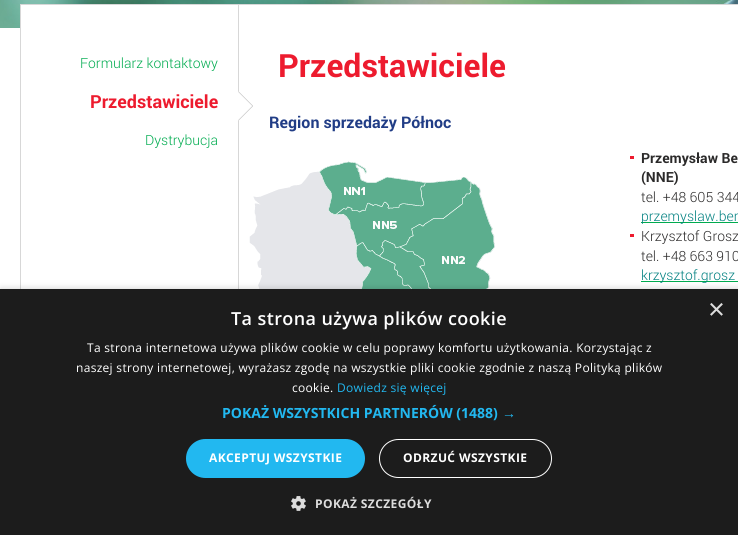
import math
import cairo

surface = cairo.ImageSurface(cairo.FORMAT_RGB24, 738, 535)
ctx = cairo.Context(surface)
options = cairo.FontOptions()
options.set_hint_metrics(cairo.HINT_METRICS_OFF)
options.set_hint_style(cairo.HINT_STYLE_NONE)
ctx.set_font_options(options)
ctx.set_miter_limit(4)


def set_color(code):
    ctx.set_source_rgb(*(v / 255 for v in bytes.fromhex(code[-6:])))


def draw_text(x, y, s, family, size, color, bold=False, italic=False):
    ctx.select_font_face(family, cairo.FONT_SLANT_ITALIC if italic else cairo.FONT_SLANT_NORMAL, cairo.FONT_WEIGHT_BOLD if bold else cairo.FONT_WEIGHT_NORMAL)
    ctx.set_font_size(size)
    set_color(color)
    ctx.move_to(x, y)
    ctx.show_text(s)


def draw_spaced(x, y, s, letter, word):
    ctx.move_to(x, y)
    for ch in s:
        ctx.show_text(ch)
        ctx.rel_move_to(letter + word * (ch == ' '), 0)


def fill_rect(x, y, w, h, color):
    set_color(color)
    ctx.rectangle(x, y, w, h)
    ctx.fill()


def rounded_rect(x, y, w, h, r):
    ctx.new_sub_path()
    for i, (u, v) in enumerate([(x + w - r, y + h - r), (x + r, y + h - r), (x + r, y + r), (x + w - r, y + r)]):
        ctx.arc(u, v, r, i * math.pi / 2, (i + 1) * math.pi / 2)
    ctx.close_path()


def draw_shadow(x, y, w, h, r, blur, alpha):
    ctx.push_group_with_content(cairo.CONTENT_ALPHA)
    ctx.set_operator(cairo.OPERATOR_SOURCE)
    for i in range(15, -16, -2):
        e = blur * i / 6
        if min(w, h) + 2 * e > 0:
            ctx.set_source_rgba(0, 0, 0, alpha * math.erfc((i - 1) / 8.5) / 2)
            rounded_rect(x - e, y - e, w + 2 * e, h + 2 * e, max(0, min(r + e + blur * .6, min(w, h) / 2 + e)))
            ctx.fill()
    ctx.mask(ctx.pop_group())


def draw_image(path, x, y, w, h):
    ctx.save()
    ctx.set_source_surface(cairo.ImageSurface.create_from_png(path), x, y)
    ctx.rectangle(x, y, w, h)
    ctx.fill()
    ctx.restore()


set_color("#ffffff")
ctx.paint()
draw_image("assets/img1.png", 0, 0, 738, 28)
fill_rect(21, 5, 717, 23, "#ffffff")
ctx.rectangle(20.5, 4.5, 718, 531)
set_color("#d7d7d7")
ctx.set_line_width(1)
ctx.stroke()
draw_text(80, 68, "Formularz kontaktowy", "Roboto Light", 14, "#00ab4f")
draw_text(90, 108, "Przedstawiciele", "Roboto", 18, "#ed1b2e", bold=True)
fill_rect(238, 5, 1, 284, "#d7d7d7")
draw_image("assets/img2.png", 238, 91, 15, 30)
draw_text(145, 145, "Dystrybucja", "Roboto Light", 14, "#00ab4f")
draw_text(278, 77, "Przedstawiciele", "Roboto", 32, "#ed1b2e", bold=True)
draw_text(269, 128, "Region sprzedaży Północ", "Roboto", 16, "#213d86", bold=True)
draw_image("assets/img3.png", 249, 161, 247, 128)
fill_rect(630, 156, 4, 3, "#ed1b2e")
draw_text(641, 163, "Przemysław Be", "Roboto", 14, "#2b2a2a", bold=True)
draw_text(641, 182, "(NNE)", "Roboto", 14, "#2b2a2a", bold=True)
draw_text(641, 202, "tel. +48 605 344", "Roboto Light", 14, "#2b2a2a")
fill_rect(641, 222, 97, 1, "#00ab4f")
draw_text(641, 221, "przemyslaw.ben", "Roboto Light", 14, "#008080")
fill_rect(630, 234, 4, 3, "#ed1b2e")
draw_text(641, 241, "Krzysztof Grosz", "Roboto Light", 14, "#2b2a2a")
draw_text(641, 261, "tel. +48 663 910", "Roboto Light", 14, "#2b2a2a")
fill_rect(641, 281, 97, 1, "#00ab4f")
draw_text(641, 280, "krzysztof.grosz", "Roboto Light", 14, "#008080")
set_color("#000000")
draw_shadow(1, 291, 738, 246, 0, 4, 0.35)
fill_rect(0, 289, 738, 246, "#1c1c1c")
draw_text(708, 319, "×", "Liberation Sans", 29, "#dddddd")
ctx.select_font_face("Open Sans SemiBold")
ctx.set_font_size(18)
set_color("#ffffff")
draw_spaced(231, 325, "Ta strona używa plików cookie", 0.4, 0)
ctx.select_font_face("Open Sans")
ctx.set_font_size(12)
draw_spaced(87, 352, "Ta strona internetowa używa plików cookie w celu poprawy komfortu użytkowania. Korzystając z", 0.3, 0)
draw_spaced(76, 372, "naszej strony internetowej, wyrażasz zgodę na wszystkie pliki cookie zgodnie z naszą Polityką plików", 0.3, 0)
draw_spaced(292, 392, "cookie.", 0.3, 0)
set_color("#22b8f0")
draw_spaced(337, 392, "Dowiedz się więcej", 0.3, 0)
draw_text(222, 418, "POKAŻ WSZYSTKICH PARTNERÓW (1488)", "Open Sans", 14, "#22b8f0", bold=True)
draw_text(502, 418, "→", "Liberation Sans", 14, "#22b8f0", bold=True)
rounded_rect(186, 439, 179, 39, 19.5)
ctx.fill()
ctx.select_font_face("Open Sans", cairo.FONT_SLANT_NORMAL, cairo.FONT_WEIGHT_BOLD)
ctx.set_font_size(12)
set_color("#ffffff")
draw_spaced(209, 462, "AKCEPTUJ WSZYSTKIE", 0.4, 0)
rounded_rect(379.5, 439.5, 172, 38, 19)
ctx.stroke()
draw_spaced(403, 462, "ODRZUĆ WSZYSTKIE", 0.4, 0)
draw_image("assets/img4.png", 291, 496, 15, 15)
set_color("#dddddd")
draw_spaced(315, 508, "POKAŻ SZCZEGÓŁY", 0.4, 0)
surface.write_to_png("output.png")
